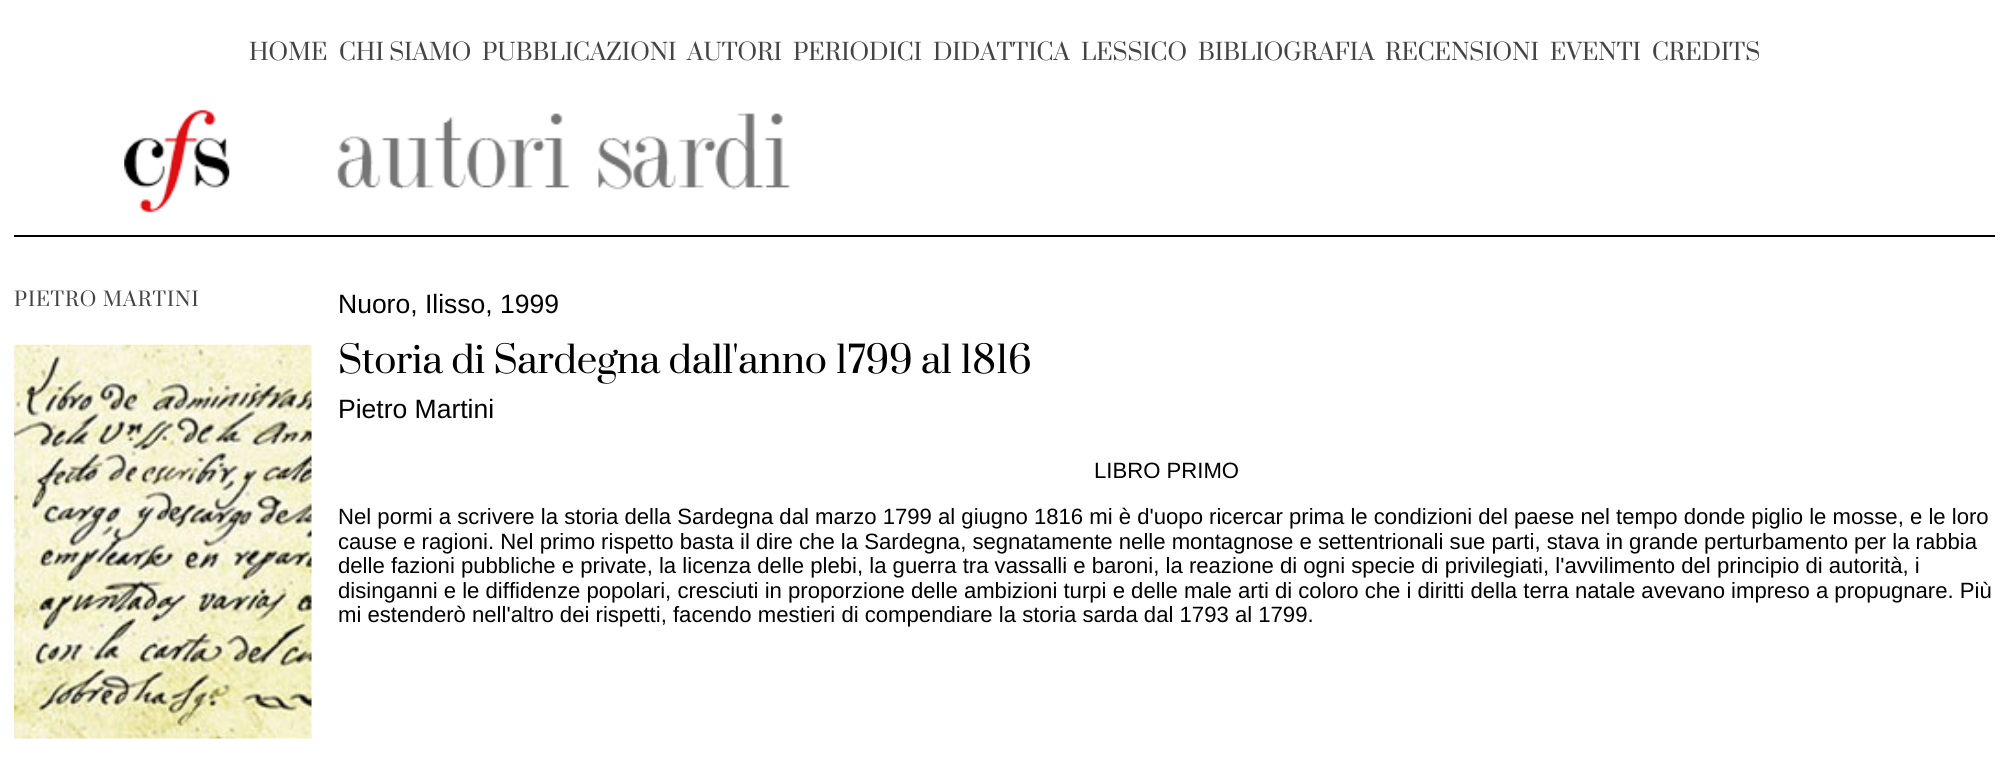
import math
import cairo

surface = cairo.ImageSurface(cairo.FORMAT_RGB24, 2009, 769)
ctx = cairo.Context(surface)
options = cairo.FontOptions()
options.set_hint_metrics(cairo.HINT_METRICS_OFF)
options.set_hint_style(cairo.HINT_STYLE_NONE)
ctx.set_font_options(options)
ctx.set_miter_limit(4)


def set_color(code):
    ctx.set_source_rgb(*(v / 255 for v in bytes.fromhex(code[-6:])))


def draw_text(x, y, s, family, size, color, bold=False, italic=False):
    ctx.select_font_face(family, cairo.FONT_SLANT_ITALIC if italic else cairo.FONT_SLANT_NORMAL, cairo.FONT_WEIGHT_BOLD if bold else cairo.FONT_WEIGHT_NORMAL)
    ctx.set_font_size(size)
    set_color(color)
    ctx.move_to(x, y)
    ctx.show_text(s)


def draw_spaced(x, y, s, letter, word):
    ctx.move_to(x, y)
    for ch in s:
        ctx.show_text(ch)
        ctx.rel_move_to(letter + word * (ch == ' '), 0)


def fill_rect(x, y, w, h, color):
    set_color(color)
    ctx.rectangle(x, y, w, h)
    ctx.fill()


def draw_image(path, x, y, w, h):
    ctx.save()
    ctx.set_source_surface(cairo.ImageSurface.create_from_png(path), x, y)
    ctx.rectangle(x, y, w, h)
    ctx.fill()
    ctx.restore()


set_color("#ffffff")
ctx.paint()
draw_text(249, 60, "HOME", "Prata", 22.75, "#444444")
draw_text(339, 60, "CHI SIAMO", "Prata", 22.75, "#444444")
draw_text(482, 60, "PUBBLICAZIONI", "Prata", 22.75, "#444444")
draw_text(687, 60, "AUTORI", "Prata", 22.75, "#444444")
draw_text(793, 60, "PERIODICI", "Prata", 22.75, "#444444")
draw_text(933, 60, "DIDATTICA", "Prata", 22.75, "#444444")
draw_text(1081, 60, "LESSICO", "Prata", 22.75, "#444444")
draw_text(1198, 60, "BIBLIOGRAFIA", "Prata", 22.75, "#444444")
draw_text(1385, 60, "RECENSIONI", "Prata", 22.75, "#444444")
draw_text(1550, 60, "EVENTI", "Prata", 22.75, "#444444")
draw_text(1652, 60, "CREDITS", "Prata", 22.75, "#444444")
fill_rect(14, 235, 1981, 2, "#000000")
draw_image("assets/img1.png", 124, 109, 106, 104)
draw_image("assets/img2.png", 337, 113, 453, 77)
ctx.set_font_size(19.25)
set_color("#444444")
draw_spaced(14, 306, "PIETRO MARTINI", 0.9, 0)
draw_image("assets/img3.png", 14, 344, 298, 395)
draw_text(338, 313, "Nuoro, Ilisso, 1999", "Liberation Sans", 26.5, "#000000")
ctx.select_font_face("Prata")
ctx.set_font_size(36.75)
draw_spaced(338, 373, "Storia di Sardegna dall'anno 1799 al 1816", -0.2, 0)
draw_text(338, 418, "Pietro Martini", "Liberation Sans", 26.5, "#000000")
draw_text(1094, 478, "LIBRO PRIMO", "Liberation Sans", 22.12, "#000000")
draw_text(338, 524, "Nel pormi a scrivere la storia della Sardegna dal marzo 1799 al giugno 1816 mi è d'uopo ricercar prima le condizioni del paese nel tempo donde piglio le mosse, e le loro", "Liberation Sans", 22.12, "#000000")
draw_text(338, 549, "cause e ragioni. Nel primo rispetto basta il dire che la Sardegna, segnatamente nelle montagnose e settentrionali sue parti, stava in grande perturbamento per la rabbia", "Liberation Sans", 22.12, "#000000")
draw_text(338, 573, "delle fazioni pubbliche e private, la licenza delle plebi, la guerra tra vassalli e baroni, la reazione di ogni specie di privilegiati, l'avvilimento del principio di autorità, i", "Liberation Sans", 22.12, "#000000")
draw_text(338, 598, "disinganni e le diffidenze popolari, cresciuti in proporzione delle ambizioni turpi e delle male arti di coloro che i diritti della terra natale avevano impreso a propugnare. Più", "Liberation Sans", 22.12, "#000000")
draw_text(338, 622, "mi estenderò nell'altro dei rispetti, facendo mestieri di compendiare la storia sarda dal 1793 al 1799.", "Liberation Sans", 22.12, "#000000")
surface.write_to_png("output.png")
